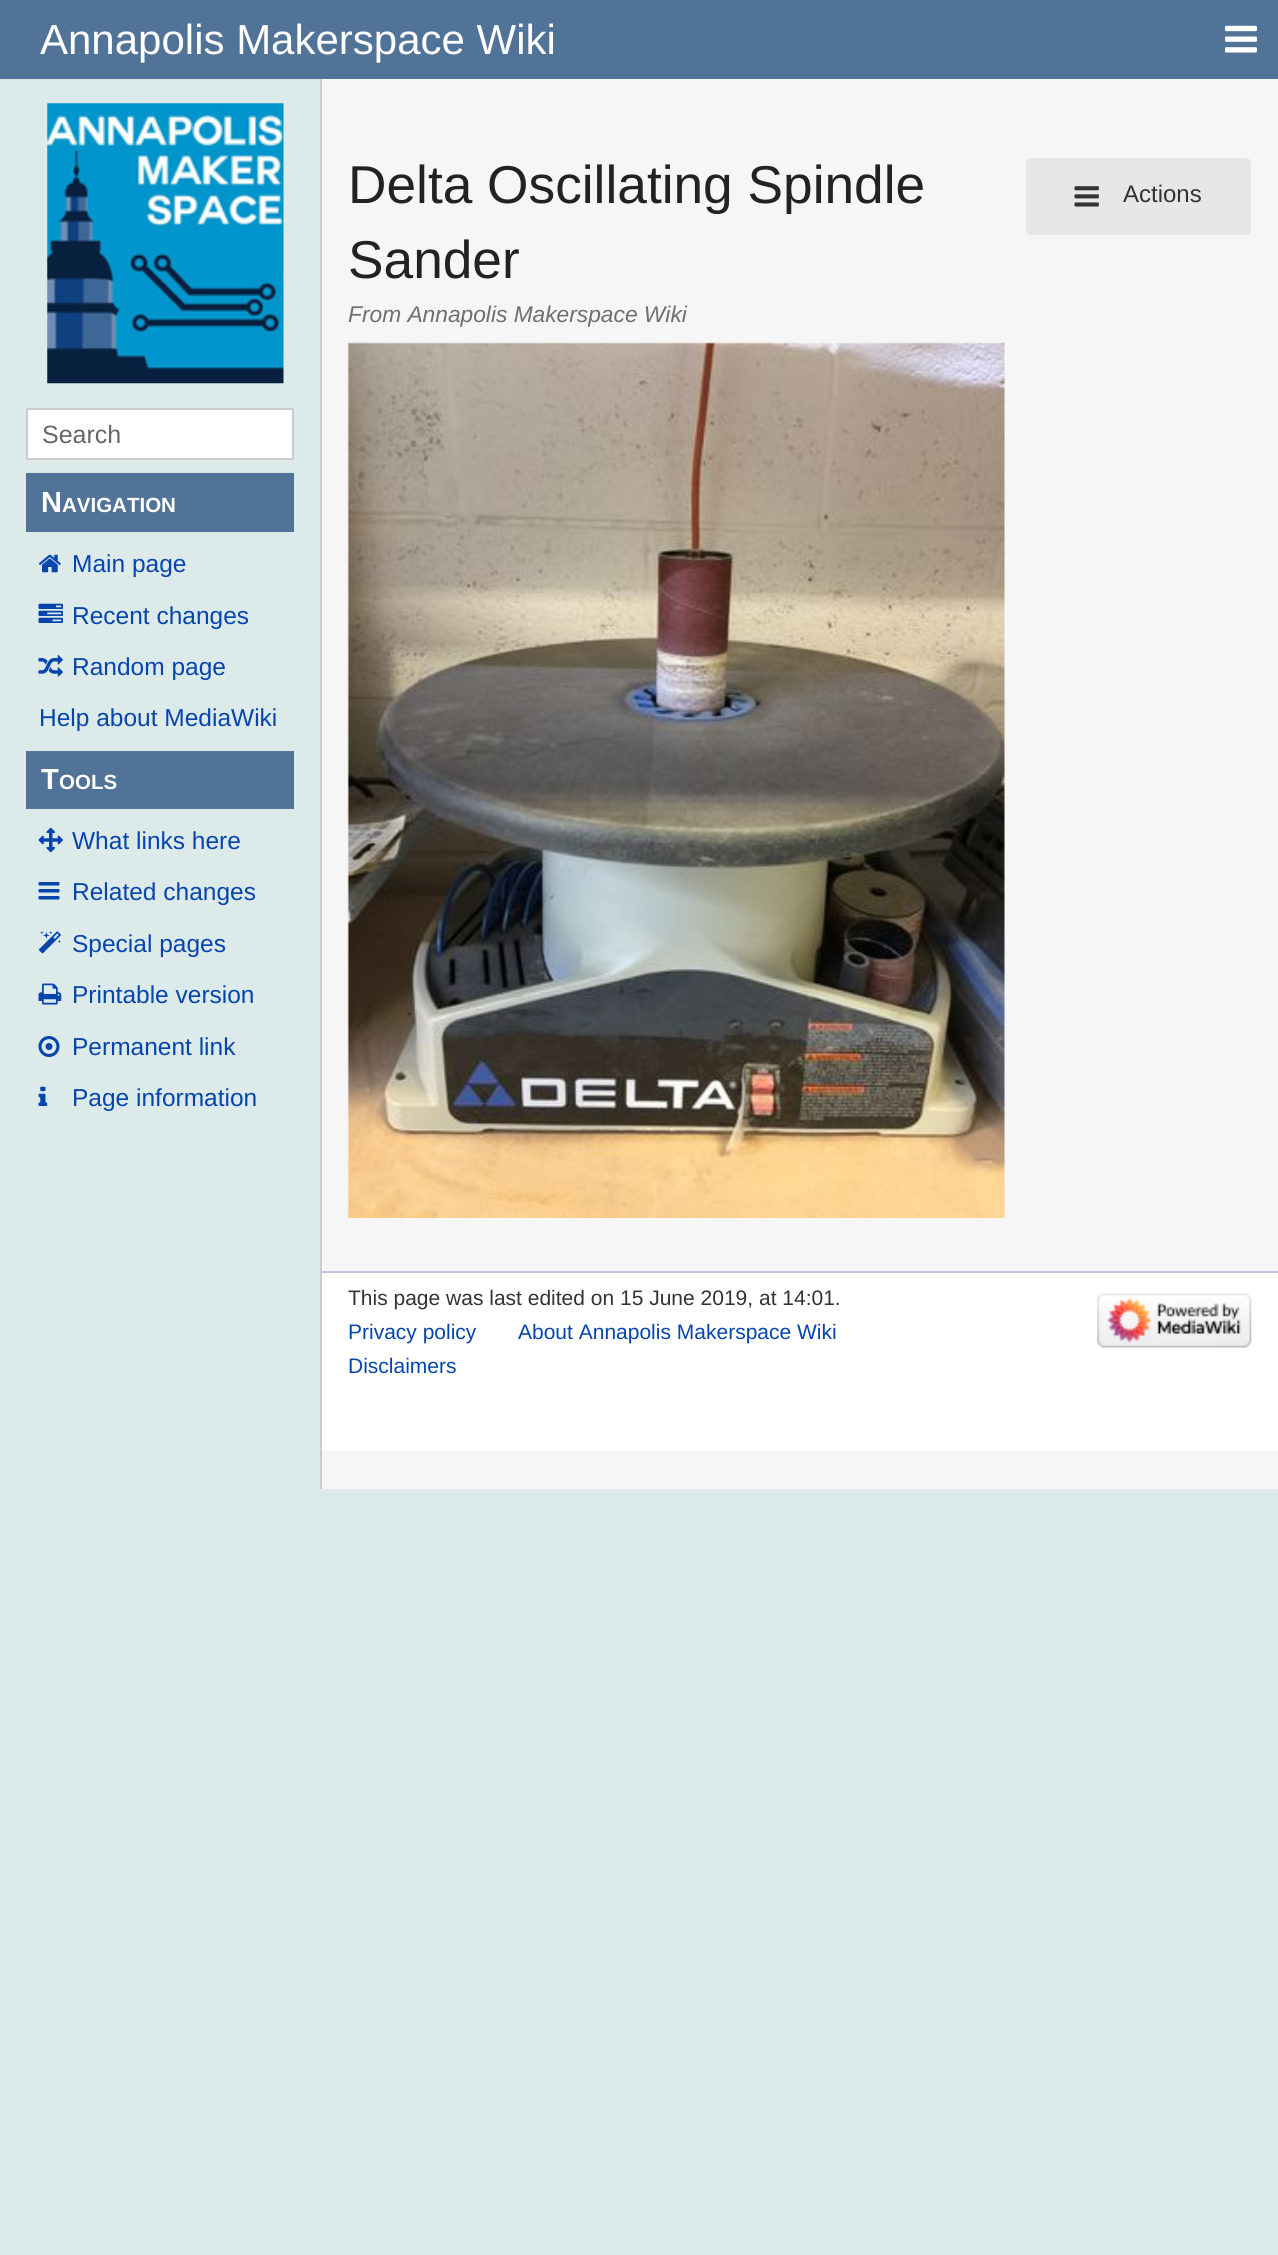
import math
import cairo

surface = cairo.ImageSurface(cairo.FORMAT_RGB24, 1278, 2255)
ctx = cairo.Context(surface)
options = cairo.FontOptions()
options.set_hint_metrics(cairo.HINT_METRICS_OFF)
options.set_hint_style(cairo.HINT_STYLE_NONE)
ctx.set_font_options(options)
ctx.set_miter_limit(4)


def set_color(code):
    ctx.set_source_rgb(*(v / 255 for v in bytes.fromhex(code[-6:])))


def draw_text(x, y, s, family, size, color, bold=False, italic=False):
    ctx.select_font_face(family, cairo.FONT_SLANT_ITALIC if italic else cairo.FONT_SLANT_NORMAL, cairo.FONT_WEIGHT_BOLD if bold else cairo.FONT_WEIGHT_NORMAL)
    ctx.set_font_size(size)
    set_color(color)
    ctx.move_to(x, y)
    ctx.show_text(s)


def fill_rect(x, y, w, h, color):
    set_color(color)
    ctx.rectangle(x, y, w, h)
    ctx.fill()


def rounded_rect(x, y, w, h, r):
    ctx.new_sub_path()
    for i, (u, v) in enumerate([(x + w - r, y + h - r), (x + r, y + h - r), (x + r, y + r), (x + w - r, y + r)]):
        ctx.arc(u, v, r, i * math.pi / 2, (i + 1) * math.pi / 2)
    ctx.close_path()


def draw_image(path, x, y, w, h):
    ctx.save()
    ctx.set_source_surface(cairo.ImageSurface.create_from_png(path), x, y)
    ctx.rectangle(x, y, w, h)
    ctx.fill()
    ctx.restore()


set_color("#dceaea")
ctx.paint()
fill_rect(0, 0, 1278, 79, "#517398")
draw_text(40, 54, "Annapolis Makerspace Wiki", "Liberation Sans", 42, "#ffffff")
draw_image("assets/img1.png", 1225, 25, 32, 28)
draw_image("assets/img2.png", 47, 103, 237, 281)
ctx.rectangle(27, 409, 266, 50)
ctx.fill_preserve()
set_color("#cccccc")
ctx.stroke()
draw_text(42, 443, "Search", "Liberation Sans", 25, "#666666")
fill_rect(26, 473, 268, 59, "#517398")
draw_text(41, 512, "N", "Liberation Sans", 29, "#ffffff", bold=True)
draw_text(62, 512, "AVIGATION", "Liberation Sans", 20.5, "#ffffff", bold=True)
draw_image("assets/img3.png", 38, 554, 23, 19)
draw_text(72, 572, "Main page", "Liberation Sans", 24.5, "#0645ad")
draw_image("assets/img4.png", 38, 603, 25, 20)
draw_text(72, 624, "Recent changes", "Liberation Sans", 24.5, "#0645ad")
draw_image("assets/img5.png", 38, 655, 25, 22)
draw_text(72, 675, "Random page", "Liberation Sans", 24.5, "#0645ad")
draw_text(39, 726, "Help about MediaWiki", "Liberation Sans", 24.5, "#0645ad")
fill_rect(26, 751, 268, 58, "#517398")
draw_text(41, 789, "T", "Liberation Sans", 29, "#ffffff", bold=True)
draw_text(59, 789, "OOLS", "Liberation Sans", 20.5, "#ffffff", bold=True)
draw_image("assets/img6.png", 38, 827, 25, 26)
draw_text(72, 849, "What links here", "Liberation Sans", 24.5, "#0645ad")
draw_image("assets/img7.png", 38, 882, 22, 18)
draw_text(72, 900, "Related changes", "Liberation Sans", 24.5, "#0645ad")
draw_image("assets/img8.png", 38, 931, 23, 23)
draw_text(72, 952, "Special pages", "Liberation Sans", 24.5, "#0645ad")
draw_image("assets/img9.png", 38, 983, 24, 22)
draw_text(72, 1003, "Printable version", "Liberation Sans", 24.5, "#0645ad")
draw_image("assets/img10.png", 38, 1036, 22, 21)
draw_text(72, 1055, "Permanent link", "Liberation Sans", 24.5, "#0645ad")
draw_image("assets/img11.png", 38, 1086, 10, 20)
draw_text(72, 1106, "Page information", "Liberation Sans", 24.5, "#0645ad")
fill_rect(322, 79, 956, 1410, "#f6f6f6")
fill_rect(320, 79, 2, 1410, "#cccccc")
draw_text(348, 203, "Delta Oscillating Spindle", "Liberation Sans", 53.25, "#222222")
draw_text(348, 278, "Sander", "Liberation Sans", 53.25, "#222222")
draw_text(348, 322, "From Annapolis Makerspace Wiki", "Liberation Sans", 22.75, "#6f6f6f", italic=True)
draw_image("assets/img12.png", 347, 342, 658, 876)
set_color("#e7e7e7")
rounded_rect(1026, 158, 225, 77, 5)
ctx.fill()
draw_image("assets/img13.png", 1074, 186, 25, 21)
draw_text(1123, 202, "Actions", "Liberation Sans", 24, "#333333")
fill_rect(322, 1273, 956, 178, "#ffffff")
fill_rect(322, 1271, 956, 2, "#c3c3e5")
draw_text(348, 1305, "This page was last edited on 15 June 2019, at 14:01.", "Liberation Sans", 21, "#333333")
draw_text(348, 1339, "Privacy policy", "Liberation Sans", 21, "#0645ad")
draw_text(518, 1339, "About Annapolis Makerspace Wiki", "Liberation Sans", 21, "#0645ad")
draw_text(348, 1373, "Disclaimers", "Liberation Sans", 21, "#0645ad")
draw_image("assets/img14.png", 1097, 1293, 155, 55)
surface.write_to_png("output.png")
